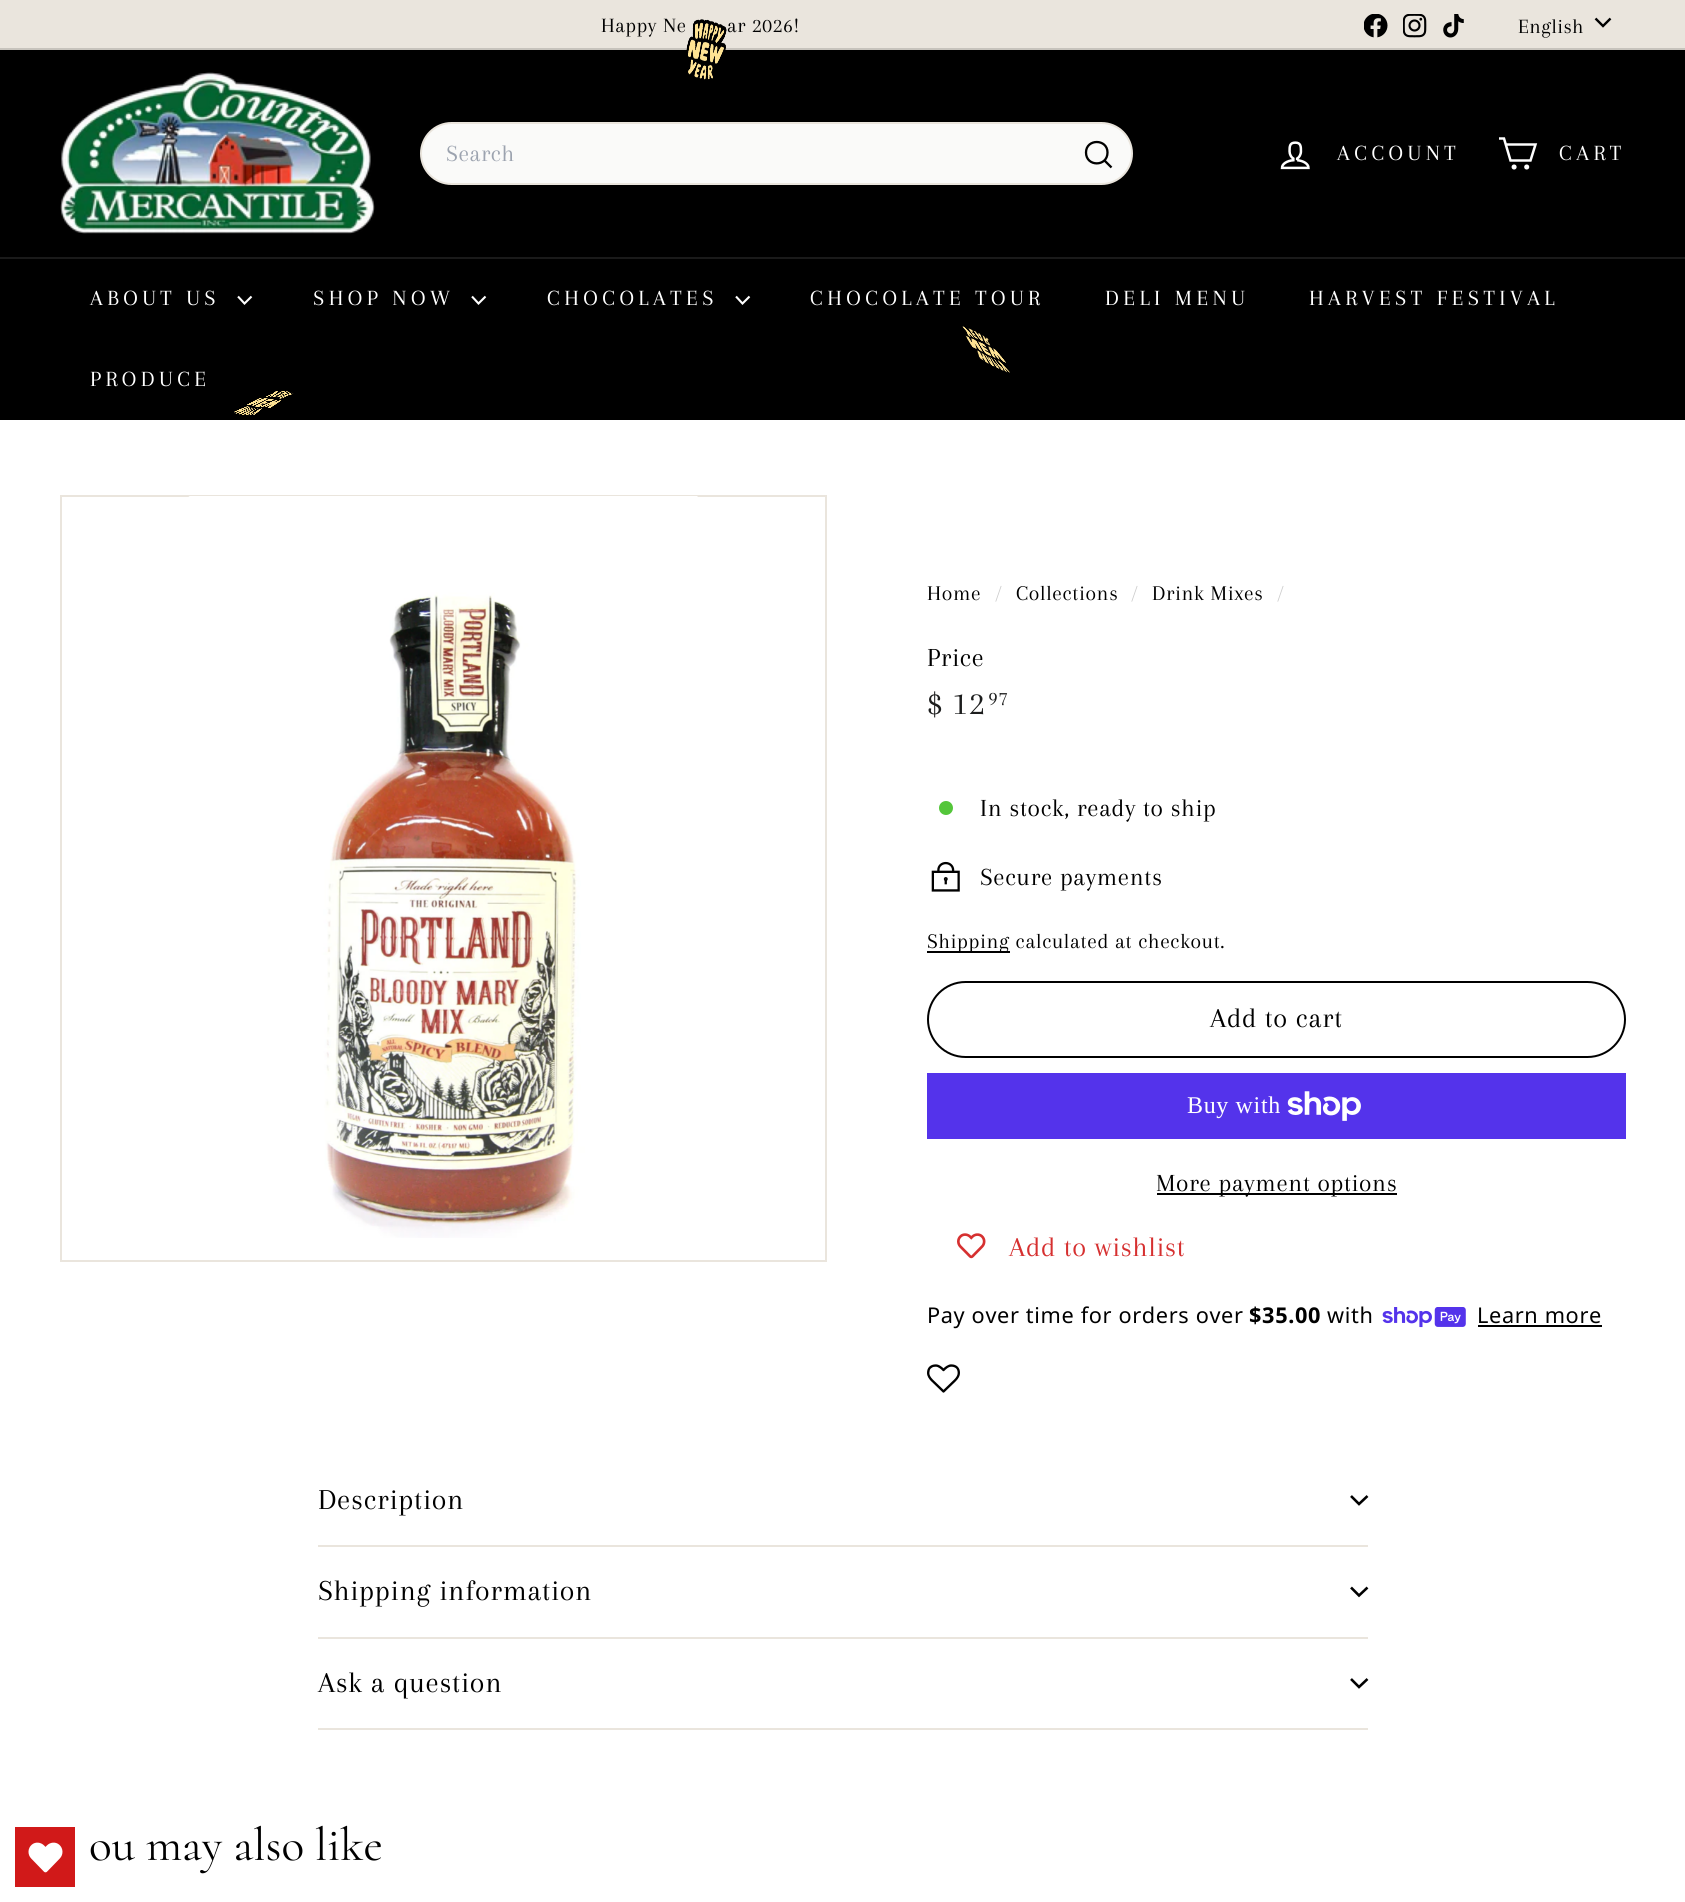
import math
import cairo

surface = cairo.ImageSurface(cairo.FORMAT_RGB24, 1685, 1902)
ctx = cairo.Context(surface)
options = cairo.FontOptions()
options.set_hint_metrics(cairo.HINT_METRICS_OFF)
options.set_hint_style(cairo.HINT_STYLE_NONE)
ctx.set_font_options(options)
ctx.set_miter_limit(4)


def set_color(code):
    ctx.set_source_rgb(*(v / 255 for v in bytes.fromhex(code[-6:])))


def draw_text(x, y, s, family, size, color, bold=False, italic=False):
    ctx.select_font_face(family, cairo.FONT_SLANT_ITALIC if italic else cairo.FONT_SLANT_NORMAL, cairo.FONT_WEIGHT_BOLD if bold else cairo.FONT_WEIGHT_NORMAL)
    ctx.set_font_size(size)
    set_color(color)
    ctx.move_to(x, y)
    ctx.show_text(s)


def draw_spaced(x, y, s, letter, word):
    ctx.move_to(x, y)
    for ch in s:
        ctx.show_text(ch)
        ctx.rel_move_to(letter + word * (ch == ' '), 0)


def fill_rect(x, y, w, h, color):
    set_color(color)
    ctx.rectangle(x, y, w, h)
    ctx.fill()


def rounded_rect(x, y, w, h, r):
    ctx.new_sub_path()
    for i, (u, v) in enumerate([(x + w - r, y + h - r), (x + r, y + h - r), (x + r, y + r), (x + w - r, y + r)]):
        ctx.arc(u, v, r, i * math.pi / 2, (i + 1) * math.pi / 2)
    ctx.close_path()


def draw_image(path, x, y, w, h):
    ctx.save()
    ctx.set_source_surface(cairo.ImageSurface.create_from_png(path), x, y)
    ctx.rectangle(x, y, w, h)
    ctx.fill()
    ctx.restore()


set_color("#ffffff")
ctx.paint()
fill_rect(0, 0, 1685, 48, "#eae5dd")
ctx.select_font_face("Arapey")
ctx.set_font_size(21)
set_color("#000000")
draw_spaced(601, 32, "Happy Ne", 0.65, 0)
draw_spaced(727, 32, "ar 2026!", 0.65, 0)
draw_image("assets/img1.png", 1364, 14, 24, 24)
draw_image("assets/img2.png", 1403, 14, 24, 24)
draw_image("assets/img3.png", 1443, 14, 21, 24)
draw_spaced(1518, 33, "English", 0.5, 0)
ctx.new_path()
ctx.move_to(1595.5, 18.5)
ctx.line_to(1603, 26)
ctx.line_to(1610.5, 18.5)
ctx.set_line_width(2.4)
ctx.stroke()
fill_rect(0, 48, 1685, 2, "#c7c3bc")
fill_rect(0, 50, 1685, 207, "#000000")
draw_image("assets/img4.png", 60, 72, 315, 162)
set_color("#fafaf9")
rounded_rect(421, 123, 711, 61, 30.5)
ctx.fill_preserve()
set_color("#eae5dd")
ctx.set_line_width(2)
ctx.stroke()
ctx.set_font_size(24)
set_color("#9ca3af")
draw_spaced(446, 161, "Search", 0.5, 0)
ctx.new_path()
ctx.move_to(1107.5, 152.5)
ctx.curve_to(1107.5, 167, 1086, 167, 1086, 152.5)
ctx.curve_to(1086, 138.5, 1107.5, 138.5, 1107.5, 152.5)
ctx.move_to(1111.5, 167.5)
ctx.line_to(1104.5, 160.5)
set_color("#000000")
ctx.set_line_width(2.3)
ctx.stroke()
draw_image("assets/img5.png", 1280, 141, 30, 29)
ctx.set_font_size(22.5)
set_color("#ffffff")
draw_spaced(1337, 160, "ACCOUNT", 4.5, 0)
ctx.new_path()
ctx.move_to(1506, 144.5)
ctx.line_to(1535.5, 144.5)
ctx.line_to(1530.5, 160.5)
ctx.line_to(1510.5, 160.5)
ctx.line_to(1504, 138.5)
ctx.line_to(1499, 138.5)
ctx.set_line_width(2.5)
ctx.stroke()
ctx.arc(1514.1, 167, 1.3, 0, 2 * math.pi)
ctx.stroke()
ctx.arc(1526.7, 167, 1.3, 0, 2 * math.pi)
ctx.stroke()
draw_spaced(1559, 160, "CART", 4.5, 0)
fill_rect(0, 259, 1685, 161, "#000000")
fill_rect(0, 257, 1685, 2, "#1a1a1a")
set_color("#ffffff")
draw_spaced(90, 305, "ABOUT US", 4.5, 0)
ctx.new_path()
ctx.move_to(238, 296.5)
ctx.line_to(244.5, 303.5)
ctx.line_to(251.5, 296.5)
ctx.set_line_width(2.1)
ctx.stroke()
draw_spaced(313, 305, "SHOP NOW", 4.5, 0)
ctx.new_path()
ctx.move_to(472, 296.5)
ctx.line_to(478.5, 303.5)
ctx.line_to(485.5, 296.5)
ctx.stroke()
draw_spaced(547, 305, "CHOCOLATES", 4.5, 0)
ctx.new_path()
ctx.move_to(736, 296.5)
ctx.line_to(742.5, 303.5)
ctx.line_to(749.5, 296.5)
ctx.stroke()
draw_spaced(810, 305, "CHOCOLATE TOUR", 4.5, 0)
draw_spaced(1105, 305, "DELI MENU", 4.5, 0)
draw_spaced(1309, 305, "HARVEST FESTIVAL", 4.5, 0)
draw_spaced(90, 386, "PRODUCE", 4.5, 0)
ctx.rectangle(61, 496, 765, 765)
set_color("#eae5dd")
ctx.set_line_width(2)
ctx.stroke()
draw_image("assets/img6.png", 188, 496, 510, 742)
ctx.set_font_size(21.7)
set_color("#000000")
draw_spaced(927, 600, "Home", 0.65, 0)
set_color("#cccccc")
draw_spaced(995, 600, "/", 0.65, 0)
set_color("#000000")
draw_spaced(1016, 600, "Collections", 0.65, 0)
set_color("#cccccc")
draw_spaced(1131, 600, "/", 0.65, 0)
set_color("#000000")
draw_spaced(1152, 600, "Drink Mixes", 0.65, 0)
set_color("#cccccc")
draw_spaced(1277, 600, "/", 0.65, 0)
ctx.set_font_size(27)
set_color("#000000")
draw_spaced(927, 666, "Price", 0.65, 0)
ctx.set_font_size(34)
set_color("#1c1d1d")
draw_spaced(927, 714, "$ 12", 0.65, 0)
ctx.set_font_size(21)
draw_spaced(988, 705, "97", 0.65, 0)
set_color("#54c63a")
ctx.new_path()
ctx.arc(946, 808, 7, 0, 2 * math.pi)
ctx.fill()
ctx.set_font_size(25.5)
set_color("#000000")
draw_spaced(980, 816, "In stock, ready to ship", 0.65, 0)
draw_image("assets/img7.png", 931, 861, 29, 31)
draw_spaced(980, 885, "Secure payments", 0.65, 0)
fill_rect(927, 951, 83, 2, "#000000")
ctx.set_font_size(21.7)
draw_spaced(927, 948, "Shipping calculated at checkout.", 0.65, 0)
rounded_rect(928, 982, 697, 75, 37.5)
ctx.stroke()
ctx.set_font_size(28.5)
draw_spaced(1210, 1027, "Add to cart", 0.75, 0)
fill_rect(927, 1073, 699, 66, "#5433eb")
ctx.select_font_face("Liberation Serif")
ctx.set_font_size(24)
set_color("#ffffff")
draw_spaced(1187, 1113, "Buy with", 0.65, 0)
draw_image("assets/img8.png", 1287, 1091, 74, 30)
fill_rect(1157, 1193, 240, 2, "#000000")
ctx.select_font_face("Arapey")
ctx.set_font_size(25.5)
draw_spaced(1156, 1191, "More payment options", 0.65, 0)
draw_image("assets/img9.png", 957, 1233, 29, 26)
ctx.set_font_size(28.5)
set_color("#d63030")
draw_spaced(1009, 1256, "Add to wishlist", 0.75, 0)
ctx.select_font_face("Noto Sans")
ctx.set_font_size(21.7)
set_color("#000000")
draw_spaced(927, 1323, "Pay over time for orders over", 0.65, 0)
ctx.select_font_face("Noto Sans", cairo.FONT_SLANT_NORMAL, cairo.FONT_WEIGHT_BOLD)
draw_spaced(1249, 1323, "$35.00", 0.65, 0)
ctx.select_font_face("Noto Sans")
draw_spaced(1327, 1323, "with", 0.65, 0)
draw_image("assets/img10.png", 1382, 1307, 84, 21)
draw_spaced(1477, 1323, "Learn more", 0.65, 0)
fill_rect(1478, 1325, 124, 2, "#000000")
draw_image("assets/img11.png", 927, 1364, 33, 29)
fill_rect(318, 1545, 1050, 2, "#eae5dd")
ctx.select_font_face("Arapey")
ctx.set_font_size(30)
set_color("#000000")
draw_spaced(318, 1509, "Description", 0.75, 0)
ctx.new_path()
ctx.move_to(1351, 1496)
ctx.line_to(1359, 1504)
ctx.line_to(1367.5, 1496)
ctx.set_line_width(2.6)
ctx.stroke()
fill_rect(318, 1637, 1050, 2, "#eae5dd")
set_color("#000000")
draw_spaced(318, 1600, "Shipping information", 0.75, 0)
ctx.new_path()
ctx.move_to(1351, 1587.5)
ctx.line_to(1359, 1595.5)
ctx.line_to(1367.5, 1587.5)
ctx.stroke()
fill_rect(318, 1728, 1050, 2, "#eae5dd")
set_color("#000000")
draw_spaced(318, 1692, "Ask a question", 0.75, 0)
ctx.new_path()
ctx.move_to(1351, 1679)
ctx.line_to(1359, 1687)
ctx.line_to(1367.5, 1679)
ctx.stroke()
draw_text(89, 1860, "ou may also like", "Cormorant", 47.25, "#000000")
draw_image("assets/img12.png", 686, 19, 41, 61)
draw_image("assets/img13.png", 962, 326, 48, 47)
draw_image("assets/img14.png", 234, 391, 60, 25)
fill_rect(15, 1827, 60, 60, "#d11919")
draw_image("assets/img15.png", 28, 1842, 35, 31)
surface.write_to_png("output.png")
